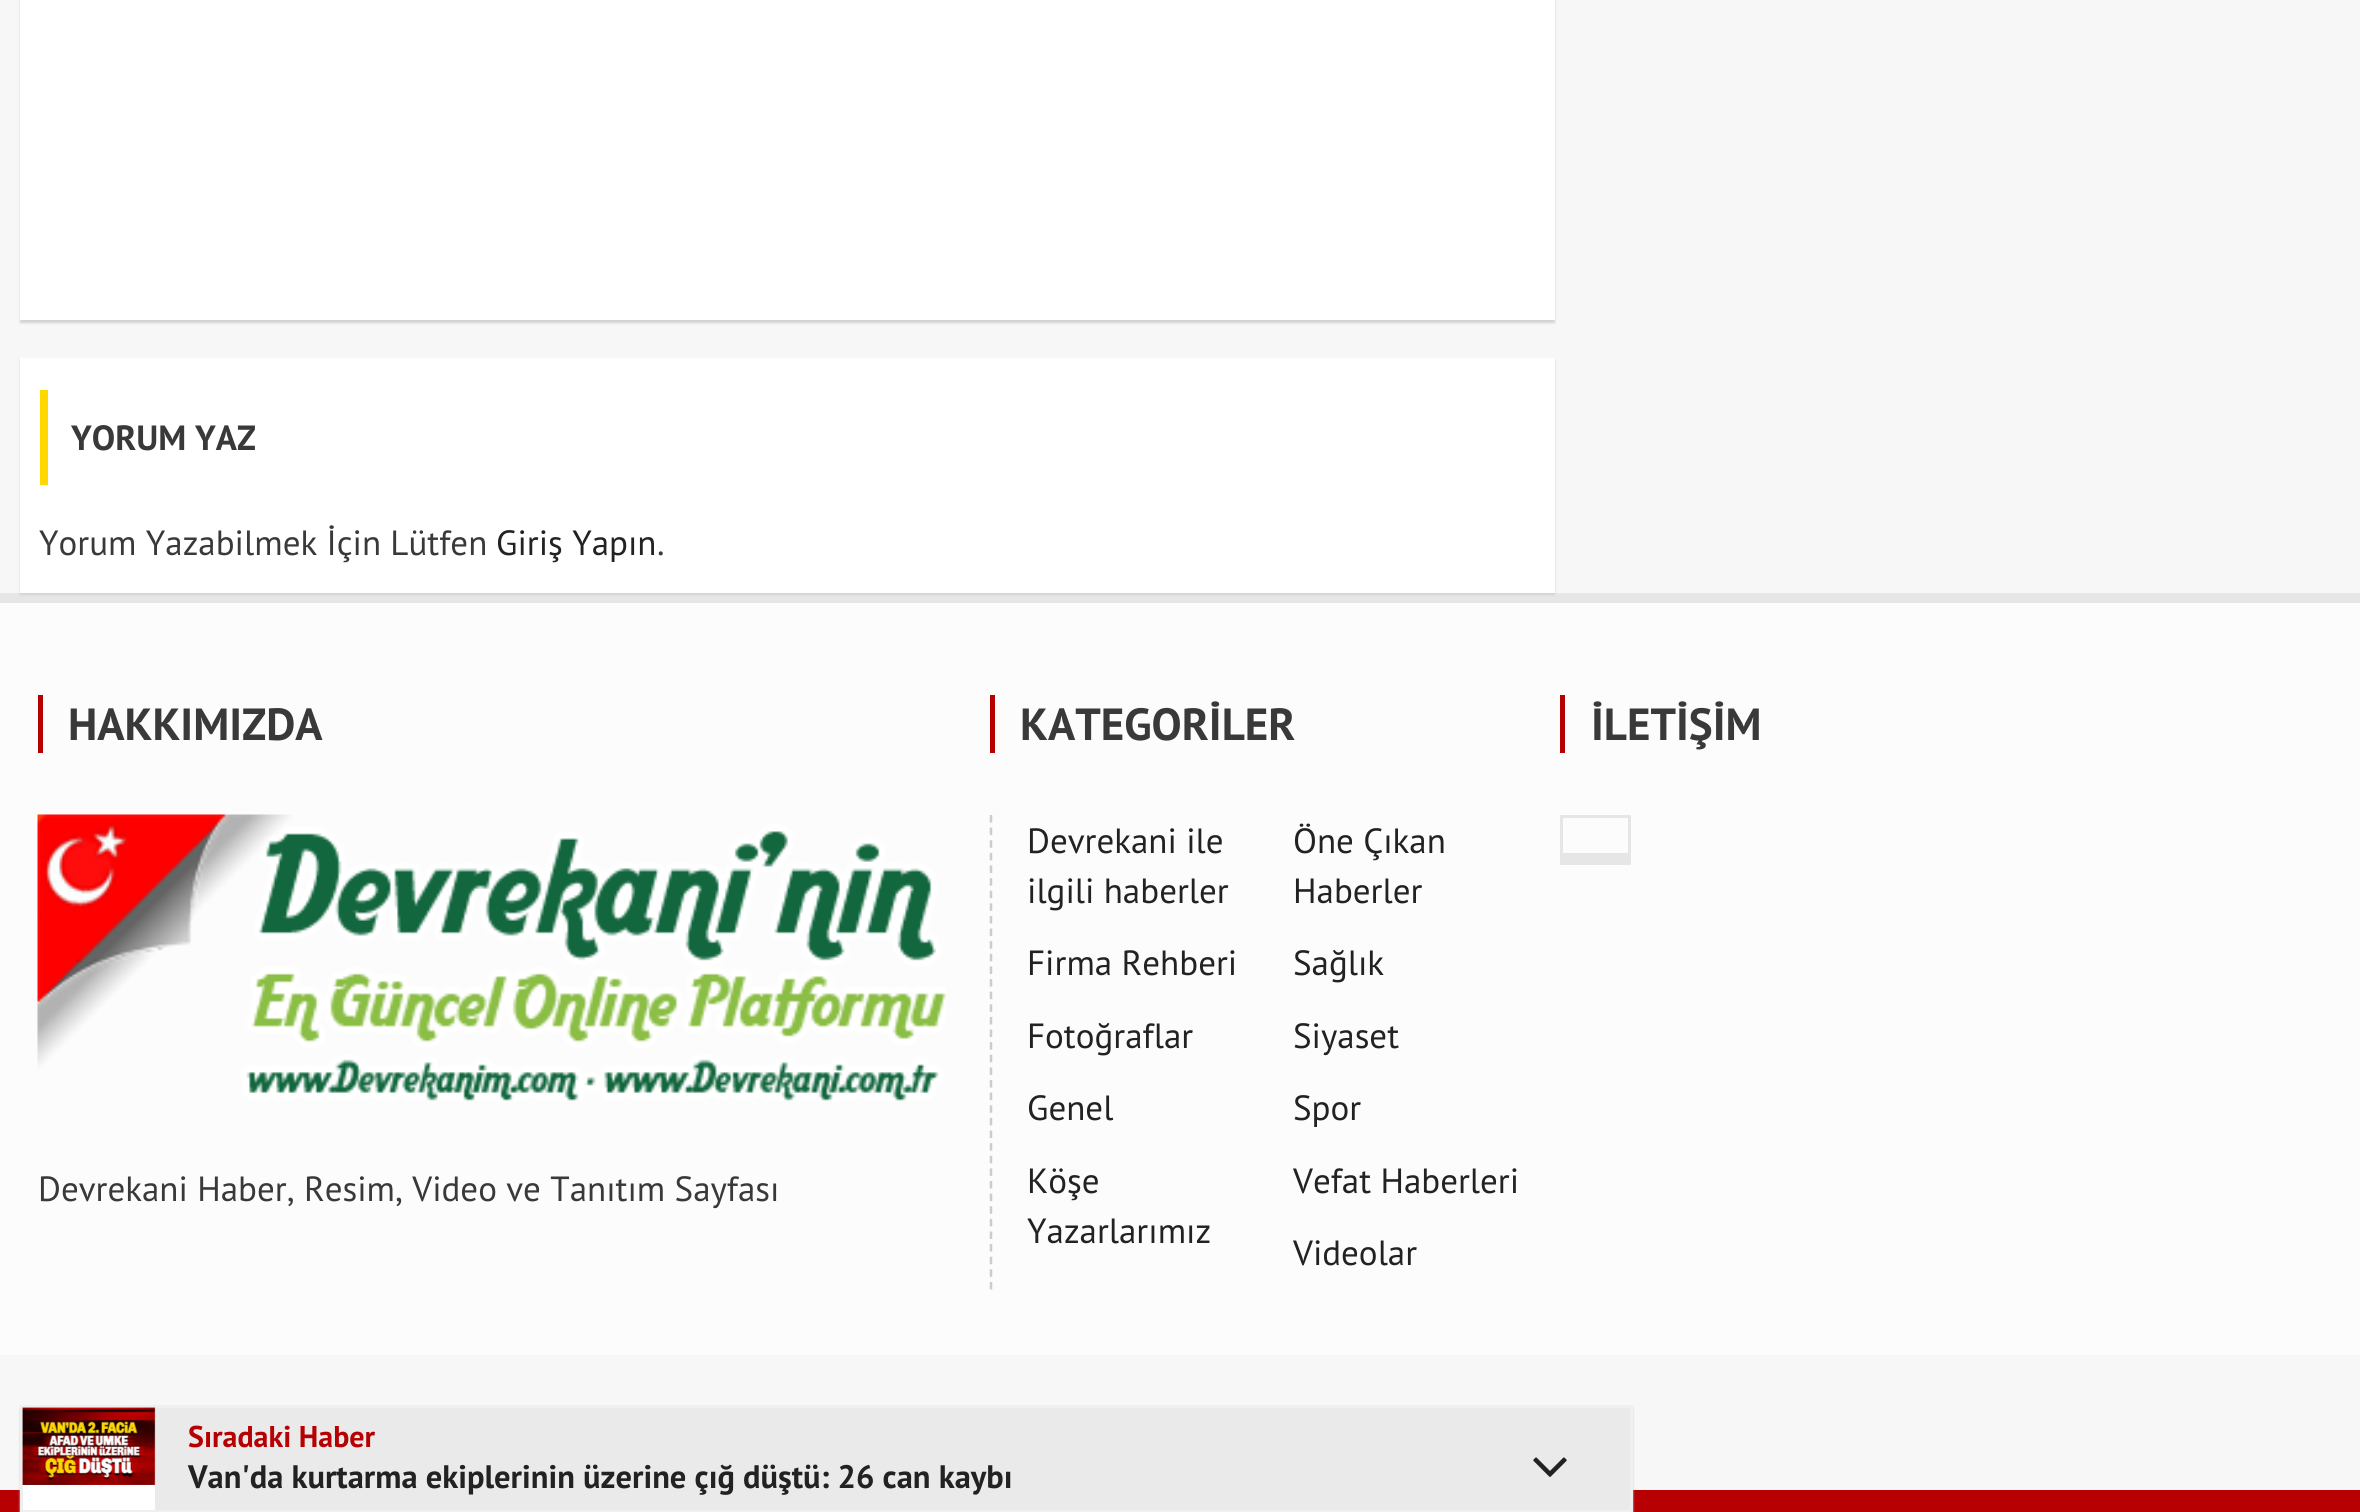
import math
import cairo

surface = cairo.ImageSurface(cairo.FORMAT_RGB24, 2360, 1512)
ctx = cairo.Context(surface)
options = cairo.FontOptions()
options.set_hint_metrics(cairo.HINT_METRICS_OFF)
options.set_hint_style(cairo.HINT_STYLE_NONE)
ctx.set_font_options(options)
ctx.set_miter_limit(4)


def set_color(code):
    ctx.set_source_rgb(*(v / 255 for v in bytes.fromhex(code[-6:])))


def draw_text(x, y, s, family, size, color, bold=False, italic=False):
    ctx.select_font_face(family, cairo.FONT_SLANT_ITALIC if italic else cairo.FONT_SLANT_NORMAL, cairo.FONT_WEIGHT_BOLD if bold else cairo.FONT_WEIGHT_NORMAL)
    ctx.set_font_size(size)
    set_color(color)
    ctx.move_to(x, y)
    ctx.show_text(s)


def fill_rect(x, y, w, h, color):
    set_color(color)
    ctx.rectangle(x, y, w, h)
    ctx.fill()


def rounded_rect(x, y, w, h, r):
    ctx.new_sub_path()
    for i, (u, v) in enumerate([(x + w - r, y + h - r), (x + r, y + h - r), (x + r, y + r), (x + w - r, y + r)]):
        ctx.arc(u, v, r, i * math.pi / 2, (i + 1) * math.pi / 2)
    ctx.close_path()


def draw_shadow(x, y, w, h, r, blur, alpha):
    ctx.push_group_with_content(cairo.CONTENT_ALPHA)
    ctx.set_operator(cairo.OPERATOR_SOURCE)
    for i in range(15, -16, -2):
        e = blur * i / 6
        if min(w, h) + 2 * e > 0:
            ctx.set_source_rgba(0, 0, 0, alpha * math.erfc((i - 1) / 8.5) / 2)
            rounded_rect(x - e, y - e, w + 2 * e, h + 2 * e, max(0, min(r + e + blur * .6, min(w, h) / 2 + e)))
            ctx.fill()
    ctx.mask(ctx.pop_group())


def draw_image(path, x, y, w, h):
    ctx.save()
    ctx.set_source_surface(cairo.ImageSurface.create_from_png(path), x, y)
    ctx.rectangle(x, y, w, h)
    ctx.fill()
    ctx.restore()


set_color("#f7f7f7")
ctx.paint()
set_color("#d3d3d3")
draw_shadow(20, -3, 1535, 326, 0, 1, 1)
fill_rect(20, 0, 1535, 320, "#ffffff")
fill_rect(0, 593, 2360, 10, "#e6e6e6")
set_color("#d3d3d3")
draw_shadow(20, 360, 1535, 235, 0, 1, 1)
fill_rect(20, 358, 1535, 235, "#ffffff")
fill_rect(40, 390, 8, 95, "#ffd800")
draw_text(71, 450, "YORUM YAZ", "PT Sans", 35, "#393939", bold=True)
draw_text(39, 555, "Yorum Yazabilmek İçin Lütfen", "PT Sans", 35, "#393939")
draw_text(496, 555, "Giriş Yapın", "PT Sans", 35, "#222222")
draw_text(657, 555, ".", "PT Sans", 35, "#393939")
fill_rect(0, 1490, 2360, 22, "#b70002")
set_color("#d3d3d3")
draw_shadow(20, 1408, 1613, 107, 0, 1, 1)
set_color("#ffffff")
ctx.rectangle(21.5, 1406.5, 1610, 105)
ctx.fill_preserve()
set_color("#efefef")
ctx.set_line_width(3)
ctx.stroke()
draw_image("assets/img1.png", 22, 1407, 134, 78)
ctx.set_source_rgba(0.8, 0.8, 0.8, 0.4)
ctx.rectangle(155, 1408, 1475, 102)
ctx.fill()
draw_text(188, 1447, "Sıradaki Haber", "PT Sans", 30, "#b70002", bold=True)
draw_text(188, 1488, "Van'da kurtarma ekiplerinin üzerine çığ düştü: 26 can kaybı", "PT Sans", 32.5, "#222222", bold=True)
draw_image("assets/img2.png", 1533, 1457, 34, 20)
fill_rect(0, 603, 2360, 752, "#fcfcfc")
fill_rect(38, 695, 5, 58, "#b70002")
draw_text(68, 740, "HAKKIMIZDA", "PT Sans", 45, "#393939", bold=True)
draw_image("assets/img3.png", 37, 814, 909, 287)
draw_text(38, 1201, "Devrekani Haber, Resim, Video ve Tanıtım Sayfası", "PT Sans", 35, "#393939")
fill_rect(990, 695, 5, 58, "#b70002")
draw_text(1020, 740, "KATEGORİLER", "PT Sans", 45, "#393939", bold=True)
ctx.new_path()
ctx.move_to(991, 815)
ctx.line_to(991, 1290)
set_color("#cccccc")
ctx.set_line_width(2.5)
ctx.set_dash([7.5, 5.12])
ctx.stroke()
draw_text(1027, 853, "Devrekani ile", "PT Sans", 35, "#222222")
draw_text(1027, 903, "ilgili haberler", "PT Sans", 35, "#222222")
draw_text(1293, 853, "Öne Çıkan", "PT Sans", 35, "#222222")
draw_text(1293, 903, "Haberler", "PT Sans", 35, "#222222")
draw_text(1027, 975, "Firma Rehberi", "PT Sans", 35, "#222222")
draw_text(1293, 975, "Sağlık", "PT Sans", 35, "#222222")
draw_text(1027, 1048, "Fotoğraflar", "PT Sans", 35, "#222222")
draw_text(1293, 1048, "Siyaset", "PT Sans", 35, "#222222")
draw_text(1027, 1120, "Genel", "PT Sans", 35, "#222222")
draw_text(1293, 1120, "Spor", "PT Sans", 35, "#222222")
draw_text(1027, 1193, "Köşe", "PT Sans", 35, "#222222")
draw_text(1027, 1243, "Yazarlarımız", "PT Sans", 35, "#222222")
draw_text(1293, 1193, "Vefat Haberleri", "PT Sans", 35, "#222222")
draw_text(1293, 1265, "Videolar", "PT Sans", 35, "#222222")
fill_rect(1560, 695, 5, 58, "#b70002")
draw_text(1591, 740, "İLETİŞİM", "PT Sans", 45, "#393939", bold=True)
fill_rect(1560, 815, 70, 3, "#e6e6e6")
fill_rect(1628, 815, 3, 50, "#e6e6e6")
fill_rect(1563, 853, 65, 12, "#e6e6e6")
fill_rect(1560, 815, 3, 50, "#e6e6e6")
surface.write_to_png("output.png")
